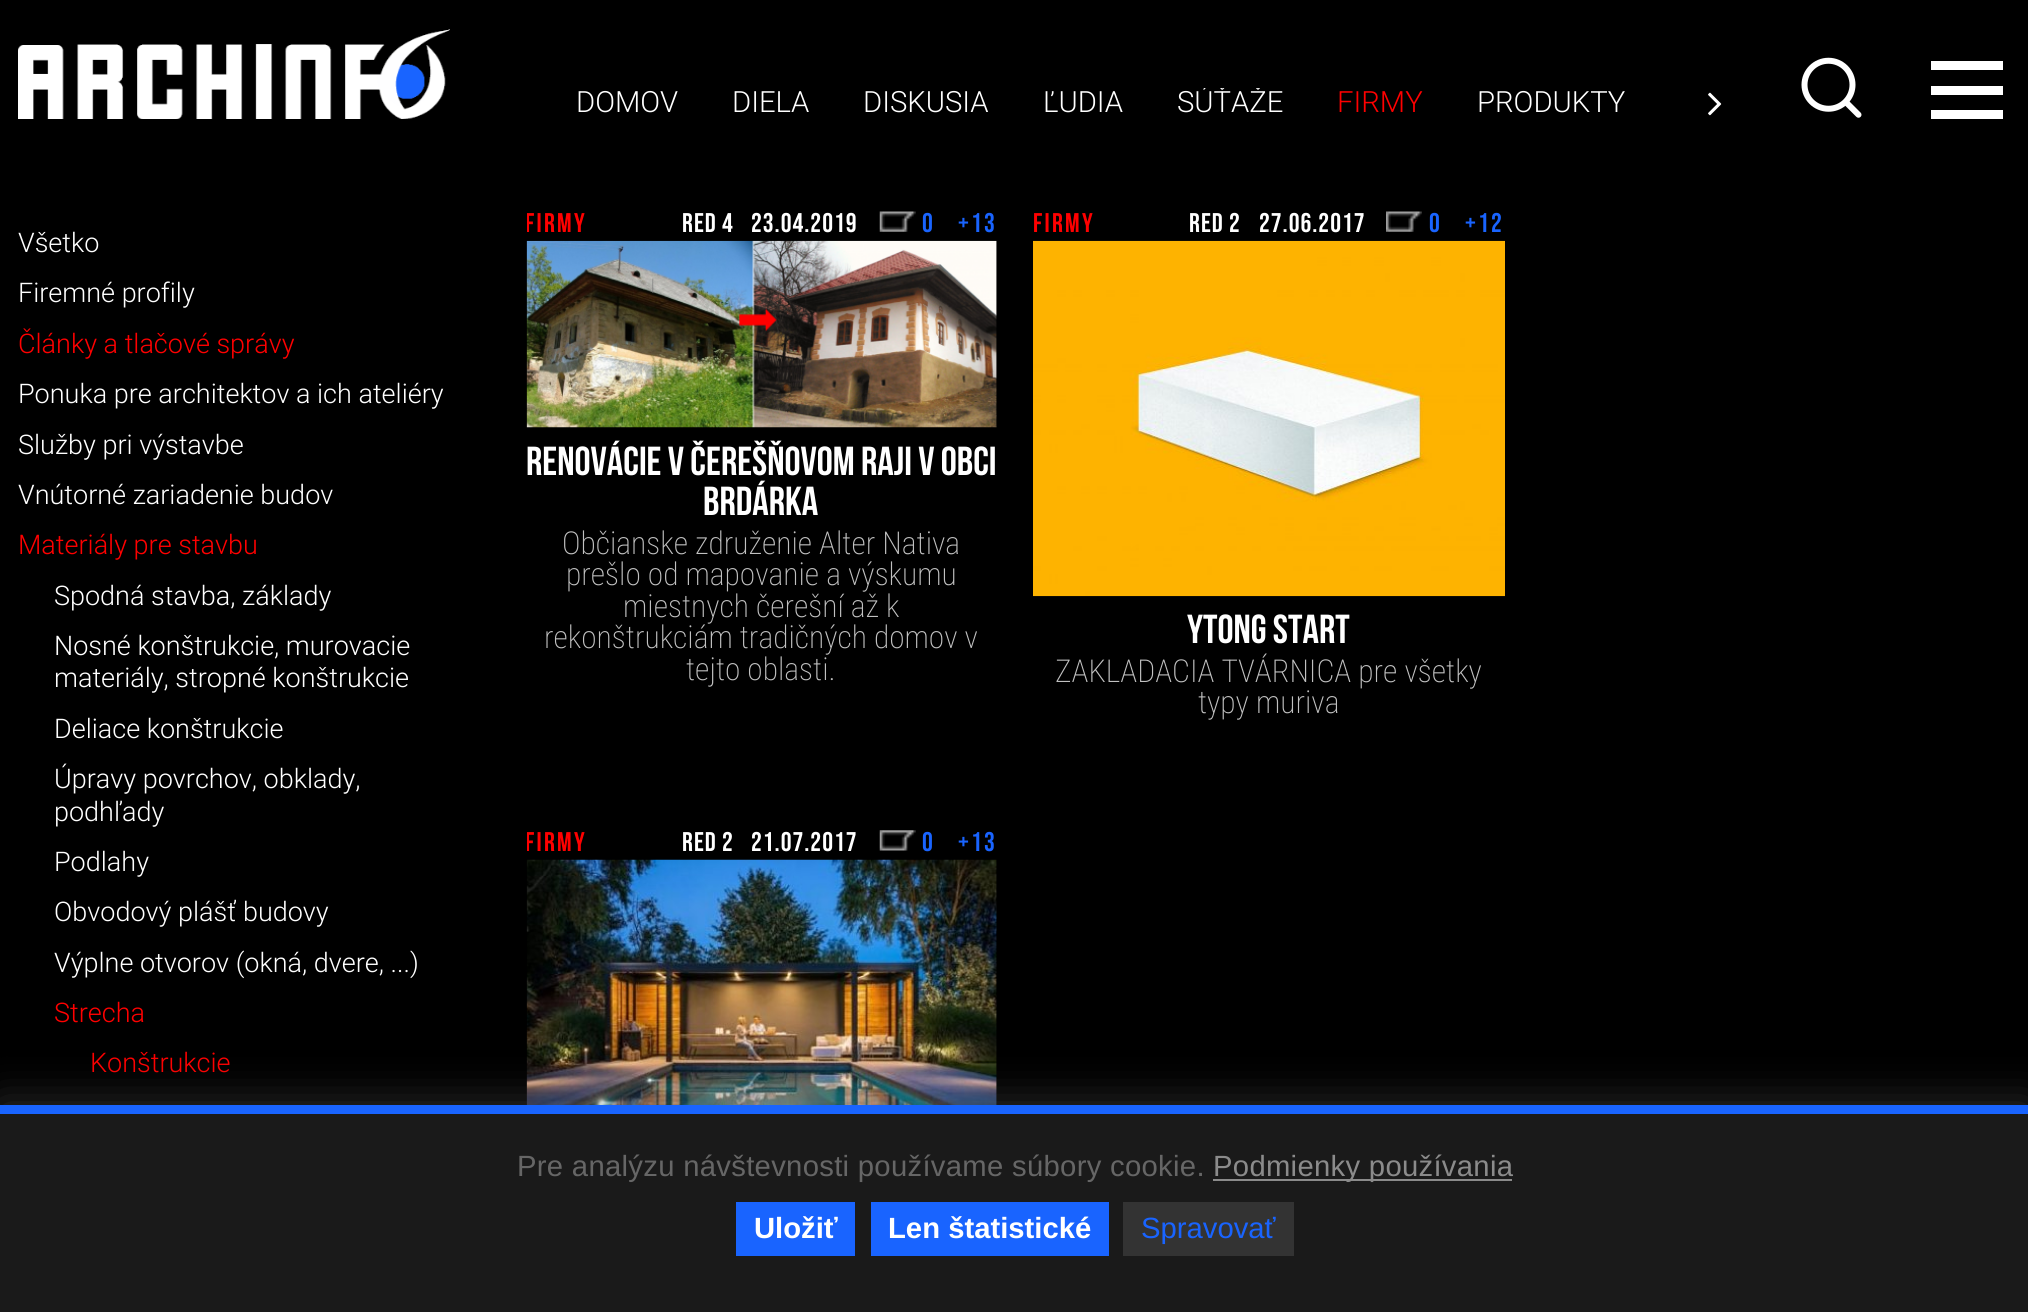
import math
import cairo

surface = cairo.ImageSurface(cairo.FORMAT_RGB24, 2028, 1312)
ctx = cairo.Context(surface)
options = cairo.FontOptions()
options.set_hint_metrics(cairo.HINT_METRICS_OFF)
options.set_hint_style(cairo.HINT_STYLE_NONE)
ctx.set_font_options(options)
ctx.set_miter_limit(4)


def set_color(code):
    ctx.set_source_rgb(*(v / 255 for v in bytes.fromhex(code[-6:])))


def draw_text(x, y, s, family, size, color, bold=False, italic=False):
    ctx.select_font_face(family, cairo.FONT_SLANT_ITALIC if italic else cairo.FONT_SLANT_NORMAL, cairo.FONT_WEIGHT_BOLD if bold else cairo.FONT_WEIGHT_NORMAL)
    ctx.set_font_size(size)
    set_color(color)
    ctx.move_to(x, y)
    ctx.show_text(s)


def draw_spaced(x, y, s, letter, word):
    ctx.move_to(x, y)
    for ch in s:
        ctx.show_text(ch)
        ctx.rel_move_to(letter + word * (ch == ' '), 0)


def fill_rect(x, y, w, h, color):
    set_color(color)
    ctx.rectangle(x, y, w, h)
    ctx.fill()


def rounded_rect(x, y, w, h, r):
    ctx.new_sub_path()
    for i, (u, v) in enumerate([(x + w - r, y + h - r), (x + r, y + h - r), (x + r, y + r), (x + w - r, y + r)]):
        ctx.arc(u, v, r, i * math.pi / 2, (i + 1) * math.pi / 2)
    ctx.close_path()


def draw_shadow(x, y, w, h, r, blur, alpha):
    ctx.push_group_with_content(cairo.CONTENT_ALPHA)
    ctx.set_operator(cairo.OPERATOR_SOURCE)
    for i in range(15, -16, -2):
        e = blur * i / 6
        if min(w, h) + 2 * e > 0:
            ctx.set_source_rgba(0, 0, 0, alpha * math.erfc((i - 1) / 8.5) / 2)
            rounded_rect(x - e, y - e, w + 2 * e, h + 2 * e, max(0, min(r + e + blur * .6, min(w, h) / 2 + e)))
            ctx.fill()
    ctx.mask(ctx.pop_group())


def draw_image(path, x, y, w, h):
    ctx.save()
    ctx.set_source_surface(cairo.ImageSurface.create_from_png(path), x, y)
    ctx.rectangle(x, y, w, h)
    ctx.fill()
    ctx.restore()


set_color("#000000")
ctx.paint()
draw_image("assets/img1.png", 18, 29, 432, 90)
draw_text(576, 112, "DOMOV", "Roboto Light", 29.25, "#ffffff")
draw_text(732, 112, "DIELA", "Roboto Light", 29.25, "#ffffff")
draw_text(863, 112, "DISKUSIA", "Roboto Light", 29.25, "#ffffff")
draw_text(1043, 112, "ĽUDIA", "Roboto Light", 29.25, "#ffffff")
ctx.save()
ctx.rectangle(576, 88, 1103, 31)
ctx.clip()
draw_text(1177, 112, "SÚŤAŽE", "Roboto Light", 29.25, "#ffffff")
ctx.restore()
draw_text(1337, 112, "FIRMY", "Roboto Light", 29.25, "#ff0000")
draw_text(1477, 112, "PRODUKTY", "Roboto Light", 29.25, "#ffffff")
draw_image("assets/img2.png", 1708, 92, 14, 24)
draw_image("assets/img3.png", 1801, 57, 61, 61)
fill_rect(1931, 61, 72, 9, "#ffffff")
fill_rect(1931, 86, 72, 9, "#ffffff")
fill_rect(1931, 110, 72, 9, "#ffffff")
draw_text(18, 252, "Všetko", "Roboto Light", 27, "#ffffff")
draw_text(18, 302, "Firemné profily", "Roboto Light", 27, "#ffffff")
draw_text(18, 353, "Články a tlačové správy", "Roboto Light", 27, "#ff0000")
draw_text(18, 403, "Ponuka pre architektov a ich ateliéry", "Roboto Light", 27, "#ffffff")
draw_text(18, 454, "Služby pri výstavbe", "Roboto Light", 27, "#ffffff")
draw_text(18, 504, "Vnútorné zariadenie budov", "Roboto Light", 27, "#ffffff")
draw_text(18, 554, "Materiály pre stavbu", "Roboto Light", 27, "#ff0000")
draw_text(54, 605, "Spodná stavba, základy", "Roboto Light", 27, "#ffffff")
draw_text(54, 655, "Nosné konštrukcie, murovacie", "Roboto Light", 27, "#ffffff")
draw_text(54, 687, "materiály, stropné konštrukcie", "Roboto Light", 27, "#ffffff")
draw_text(54, 738, "Deliace konštrukcie", "Roboto Light", 27, "#ffffff")
draw_text(54, 788, "Úpravy povrchov, obklady,", "Roboto Light", 27, "#ffffff")
draw_text(54, 821, "podhľady", "Roboto Light", 27, "#ffffff")
draw_text(54, 871, "Podlahy", "Roboto Light", 27, "#ffffff")
draw_text(54, 921, "Obvodový plášť budovy", "Roboto Light", 27, "#ffffff")
draw_text(54, 972, "Výplne otvorov (okná, dvere, ...)", "Roboto Light", 27, "#ffffff")
draw_text(54, 1022, "Strecha", "Roboto Light", 27, "#ff0000")
draw_text(90, 1072, "Konštrukcie", "Roboto Light", 27, "#ff0000")
ctx.save()
ctx.rectangle(527, 209, 470, 511)
ctx.clip()
ctx.select_font_face("Bebas Neue", cairo.FONT_SLANT_NORMAL, cairo.FONT_WEIGHT_BOLD)
draw_spaced(525, 232, "FIRMY", 2.25, 0)
ctx.restore()
ctx.select_font_face("Bebas Neue")
set_color("#ffffff")
draw_spaced(682, 232, "Red 4", 1, 0)
draw_spaced(751, 232, "23.04.2019", 1, 0)
draw_image("assets/img4.png", 879, 211, 37, 21)
set_color("#1964ff")
draw_spaced(922, 232, "0", 2.25, 0)
draw_spaced(958, 232, "+13", 2.25, 0)
draw_image("assets/img5.png", 526, 240, 471, 188)
draw_text(526, 475, "RENOVÁCIE V ČEREŠŇOVOM RAJI V OBCI", "Bebas Neue", 40.5, "#ffffff", bold=True)
draw_text(703, 515, "BRDÁRKA", "Bebas Neue", 40.5, "#ffffff", bold=True)
draw_text(562, 554, "Občianske združenie Alter Nativa", "Roboto Condensed ExtraLight", 31.5, "#c1c1c1")
draw_text(566, 585, "prešlo od mapovanie a výskumu", "Roboto Condensed ExtraLight", 31.5, "#c1c1c1")
draw_text(623, 617, "miestnych čerešní až k", "Roboto Condensed ExtraLight", 31.5, "#c1c1c1")
draw_text(544, 648, "rekonštrukciám tradičných domov v", "Roboto Condensed ExtraLight", 31.5, "#c1c1c1")
draw_text(686, 680, "tejto oblasti.", "Roboto Condensed ExtraLight", 31.5, "#c1c1c1")
ctx.select_font_face("Bebas Neue", cairo.FONT_SLANT_NORMAL, cairo.FONT_WEIGHT_BOLD)
ctx.set_font_size(27)
set_color("#ff0000")
draw_spaced(1033, 232, "FIRMY", 2.25, 0)
ctx.select_font_face("Bebas Neue")
set_color("#ffffff")
draw_spaced(1189, 232, "Red 2", 1, 0)
draw_spaced(1259, 232, "27.06.2017", 1, 0)
draw_image("assets/img6.png", 1386, 211, 36, 21)
set_color("#1964ff")
draw_spaced(1429, 232, "0", 2.25, 0)
draw_spaced(1465, 232, "+12", 2.25, 0)
draw_image("assets/img7.png", 1033, 240, 472, 357)
draw_text(1187, 643, "YTONG START", "Bebas Neue", 40.5, "#ffffff", bold=True)
draw_text(1055, 682, "ZAKLADACIA TVÁRNICA pre všetky", "Roboto Condensed ExtraLight", 31.5, "#c1c1c1")
draw_text(1198, 713, "typy muriva", "Roboto Condensed ExtraLight", 31.5, "#c1c1c1")
ctx.save()
ctx.rectangle(527, 828, 470, 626)
ctx.clip()
ctx.select_font_face("Bebas Neue", cairo.FONT_SLANT_NORMAL, cairo.FONT_WEIGHT_BOLD)
ctx.set_font_size(27)
set_color("#ff0000")
draw_spaced(525, 851, "FIRMY", 2.25, 0)
ctx.restore()
ctx.select_font_face("Bebas Neue")
ctx.set_font_size(27)
set_color("#ffffff")
draw_spaced(682, 851, "Red 2", 1, 0)
draw_spaced(751, 851, "21.07.2017", 1, 0)
draw_image("assets/img8.png", 879, 830, 37, 21)
set_color("#1964ff")
draw_spaced(922, 851, "0", 2.25, 0)
draw_spaced(958, 851, "+13", 2.25, 0)
draw_image("assets/img9.png", 526, 859, 471, 246)
set_color("#646464")
draw_shadow(0, 1105, 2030, 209, 0, 22.5, 0.5)
fill_rect(0, 1114, 2028, 198, "#1a1a1a")
fill_rect(0, 1105, 2028, 9, "#1964ff")
ctx.select_font_face("Liberation Sans")
ctx.set_font_size(29.25)
set_color("#666666")
draw_spaced(517, 1176, "Pre analýzu návštevnosti používame súbory cookie.", 0.3, 0)
fill_rect(1213, 1179, 299, 2, "#8b8b8b")
draw_spaced(1213, 1176, "Podmienky používania", 0.3, 0)
fill_rect(736, 1202, 119, 54, "#1964ff")
draw_text(754, 1238, "Uložiť", "Liberation Sans", 29.25, "#ffffff", bold=True)
fill_rect(871, 1202, 238, 54, "#1964ff")
draw_text(888, 1238, "Len štatistické", "Liberation Sans", 29.25, "#ffffff", bold=True)
fill_rect(1123, 1202, 171, 54, "#333333")
draw_text(1141, 1238, "Spravovať", "Liberation Sans", 29.25, "#1964ff")
surface.write_to_png("output.png")
